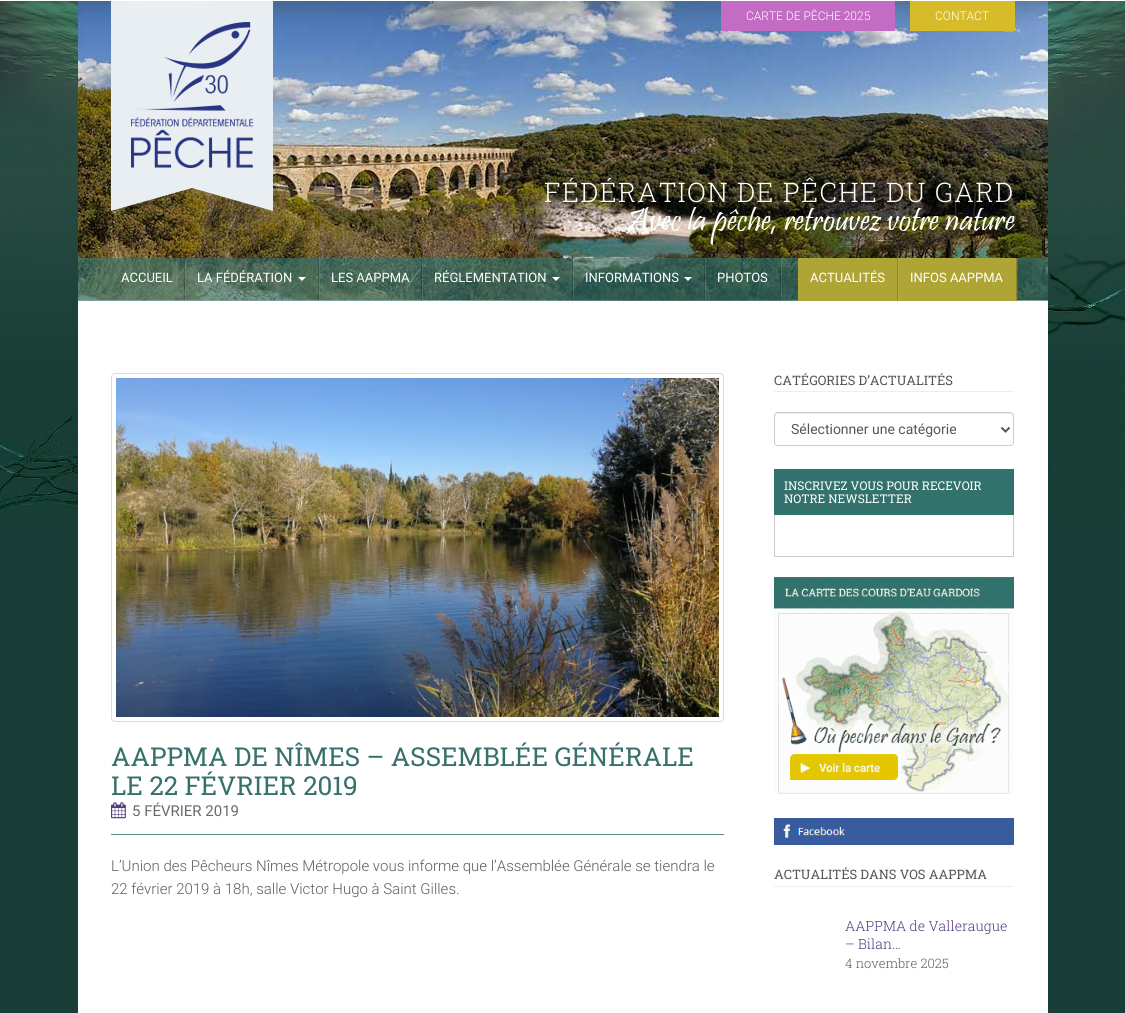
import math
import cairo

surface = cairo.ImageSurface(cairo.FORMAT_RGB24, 1125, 1013)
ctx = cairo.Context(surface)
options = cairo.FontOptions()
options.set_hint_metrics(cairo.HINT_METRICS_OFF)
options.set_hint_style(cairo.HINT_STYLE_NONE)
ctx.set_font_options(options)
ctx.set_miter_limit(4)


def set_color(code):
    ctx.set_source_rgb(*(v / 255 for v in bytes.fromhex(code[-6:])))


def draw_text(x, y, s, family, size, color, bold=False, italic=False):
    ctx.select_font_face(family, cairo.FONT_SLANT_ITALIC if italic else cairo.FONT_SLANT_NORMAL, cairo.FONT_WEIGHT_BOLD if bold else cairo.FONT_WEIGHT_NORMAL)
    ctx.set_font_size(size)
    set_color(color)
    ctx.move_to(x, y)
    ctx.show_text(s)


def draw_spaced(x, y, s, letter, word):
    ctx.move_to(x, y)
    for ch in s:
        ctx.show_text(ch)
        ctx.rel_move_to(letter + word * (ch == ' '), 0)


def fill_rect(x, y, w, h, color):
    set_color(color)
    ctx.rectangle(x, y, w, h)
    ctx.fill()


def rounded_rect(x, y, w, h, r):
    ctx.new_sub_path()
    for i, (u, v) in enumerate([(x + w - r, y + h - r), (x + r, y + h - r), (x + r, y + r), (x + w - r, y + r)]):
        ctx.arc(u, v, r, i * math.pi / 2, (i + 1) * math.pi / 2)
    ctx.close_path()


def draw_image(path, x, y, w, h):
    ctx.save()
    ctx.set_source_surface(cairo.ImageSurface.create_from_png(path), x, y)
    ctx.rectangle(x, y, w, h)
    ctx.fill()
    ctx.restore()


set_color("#ffffff")
ctx.paint()
draw_image("assets/img1.png", 0, 518, 1125, 495)
draw_image("assets/img2.png", 0, 1, 1125, 517)
draw_image("assets/img3.png", 78, 1, 970, 257)
draw_image("assets/img4.png", 111, 1, 162, 210)
fill_rect(721, 1, 174, 30, "#c36cc4")
draw_text(746, 20, "CARTE DE PÊCHE 2025", "Roboto Light", 12, "#ffffff")
fill_rect(910, 1, 105, 30, "#d6bc2b")
draw_text(935, 20, "CONTACT", "Roboto Light", 12, "#ffffff")
ctx.select_font_face("Roboto Slab Light")
ctx.set_font_size(27)
draw_spaced(544, 202, "FÉDÉRATION DE PÊCHE DU GARD", 1.4, 0)
draw_image("assets/img5.png", 627, 207, 388, 38)
fill_rect(78, 301, 970, 712, "#ffffff")
draw_image("assets/img6.png", 78, 258, 970, 43)
ctx.set_source_rgba(1, 1, 1, 0.1)
ctx.rectangle(185, 258, 1, 43)
ctx.fill()
ctx.set_source_rgba(0, 0, 0, 0.2)
ctx.rectangle(184, 258, 1, 43)
ctx.fill()
draw_text(121, 282, "ACCUEIL", "Roboto", 13, "#ffffff")
ctx.set_source_rgba(1, 1, 1, 0.1)
ctx.rectangle(319, 258, 1, 43)
ctx.fill()
ctx.set_source_rgba(0, 0, 0, 0.2)
ctx.rectangle(318, 258, 1, 43)
ctx.fill()
draw_text(197, 282, "LA FÉDÉRATION", "Roboto", 13, "#ffffff")
ctx.new_path()
ctx.move_to(298, 277)
ctx.line_to(306, 277)
ctx.line_to(302, 281)
ctx.close_path()
ctx.fill()
ctx.set_source_rgba(1, 1, 1, 0.1)
ctx.rectangle(422, 258, 1, 43)
ctx.fill()
ctx.set_source_rgba(0, 0, 0, 0.2)
ctx.rectangle(421, 258, 1, 43)
ctx.fill()
draw_text(331, 282, "LES AAPPMA", "Roboto", 13, "#ffffff")
ctx.set_source_rgba(1, 1, 1, 0.1)
ctx.rectangle(573, 258, 1, 43)
ctx.fill()
ctx.set_source_rgba(0, 0, 0, 0.2)
ctx.rectangle(572, 258, 1, 43)
ctx.fill()
draw_text(434, 282, "RÉGLEMENTATION", "Roboto", 13, "#ffffff")
ctx.new_path()
ctx.move_to(552, 277)
ctx.line_to(560, 277)
ctx.line_to(556, 281)
ctx.close_path()
ctx.fill()
ctx.set_source_rgba(1, 1, 1, 0.1)
ctx.rectangle(705, 258, 1, 43)
ctx.fill()
ctx.set_source_rgba(0, 0, 0, 0.2)
ctx.rectangle(704, 258, 1, 43)
ctx.fill()
draw_text(585, 282, "INFORMATIONS", "Roboto", 13, "#ffffff")
ctx.new_path()
ctx.move_to(684, 277)
ctx.line_to(692, 277)
ctx.line_to(688, 281)
ctx.close_path()
ctx.fill()
ctx.set_source_rgba(1, 1, 1, 0.1)
ctx.rectangle(781, 258, 1, 43)
ctx.fill()
ctx.set_source_rgba(0, 0, 0, 0.2)
ctx.rectangle(780, 258, 1, 43)
ctx.fill()
draw_text(717, 282, "PHOTOS", "Roboto", 13, "#ffffff")
fill_rect(798, 258, 99, 43, "#afa537")
fill_rect(898, 258, 1, 43, "#b7ae4b")
fill_rect(897, 258, 1, 43, "#8c842c")
draw_text(810, 282, "ACTUALITÉS", "Roboto", 13, "#ffffff")
fill_rect(899, 258, 117, 43, "#afa537")
ctx.set_source_rgba(1, 1, 1, 0.1)
ctx.rectangle(1017, 258, 1, 43)
ctx.fill()
fill_rect(1016, 258, 1, 43, "#8c842c")
draw_text(910, 282, "INFOS AAPPMA", "Roboto", 13, "#ffffff")
fill_rect(111, 834, 613, 1, "#5d8d89")
rounded_rect(111.5, 373.5, 612, 348, 3.5)
set_color("#dddddd")
ctx.set_line_width(1)
ctx.stroke()
draw_image("assets/img7.png", 116, 378, 603, 339)
draw_text(111, 766, "AAPPMA DE NÎMES – ASSEMBLÉE GÉNÉRALE", "Roboto Slab", 26, "#37716c")
draw_text(111, 795, "LE 22 FÉVRIER 2019", "Roboto Slab", 26, "#37716c")
draw_image("assets/img8.png", 111, 802, 15, 17)
draw_text(132, 816, "5 FÉVRIER 2019", "Roboto", 15, "#6b6b6b")
draw_text(111, 871, "L’Union des Pêcheurs Nîmes Métropole vous informe que l’Assemblée Générale se tiendra le", "Roboto Light", 15, "#5e5e5e")
draw_text(111, 894, "22 février 2019 à 18h, salle Victor Hugo à Saint Gilles.", "Roboto Light", 15, "#5e5e5e")
fill_rect(774, 391, 240, 1, "#eeeeee")
draw_text(774, 385, "CATÉGORIES D’ACTUALITÉS", "Roboto Slab", 13, "#565656")
set_color("#ececec")
ctx.new_path()
ctx.move_to(778, 414)
ctx.line_to(1011, 414)
ctx.line_to(1013, 415)
ctx.line_to(1013, 417)
ctx.curve_to(1013, 415, 1012, 413, 1010, 413)
ctx.line_to(778, 413)
ctx.curve_to(776, 413, 775, 415, 775, 417)
ctx.curve_to(775, 415, 776, 414, 778, 414)
ctx.close_path()
ctx.fill()
rounded_rect(774.5, 412.5, 239, 33, 3.5)
set_color("#cccccc")
ctx.stroke()
ctx.new_path()
ctx.move_to(1001.5, 427.5)
ctx.line_to(1005.5, 431.5)
ctx.line_to(1009.5, 427.5)
set_color("#555555")
ctx.set_line_width(2)
ctx.stroke()
draw_text(791, 434, "Sélectionner une catégorie", "Roboto", 14, "#565656")
fill_rect(774, 469, 240, 46, "#33716c")
draw_text(784, 490, "INSCRIVEZ VOUS POUR RECEVOIR", "Roboto Slab", 12, "#ffffff")
draw_text(784, 503, "NOTRE NEWSLETTER", "Roboto Slab", 12, "#ffffff")
fill_rect(1013, 515, 1, 42, "#cccccc")
fill_rect(774, 556, 240, 1, "#cccccc")
fill_rect(774, 515, 1, 42, "#cccccc")
draw_image("assets/img9.png", 774, 577, 240, 217)
draw_image("assets/img10.png", 774, 818, 240, 27)
fill_rect(774, 886, 240, 1, "#eeeeee")
draw_text(774, 879, "ACTUALITÉS DANS VOS AAPPMA", "Roboto Slab", 13, "#565656")
draw_text(845, 931, "AAPPMA de Valleraugue", "Roboto Slab Light", 14, "#54397e")
draw_text(845, 949, "– Bilan…", "Roboto Slab Light", 14, "#54397e")
draw_text(845, 968, "4 novembre 2025", "Roboto Slab Light", 13, "#5e5e5e")
surface.write_to_png("output.png")
